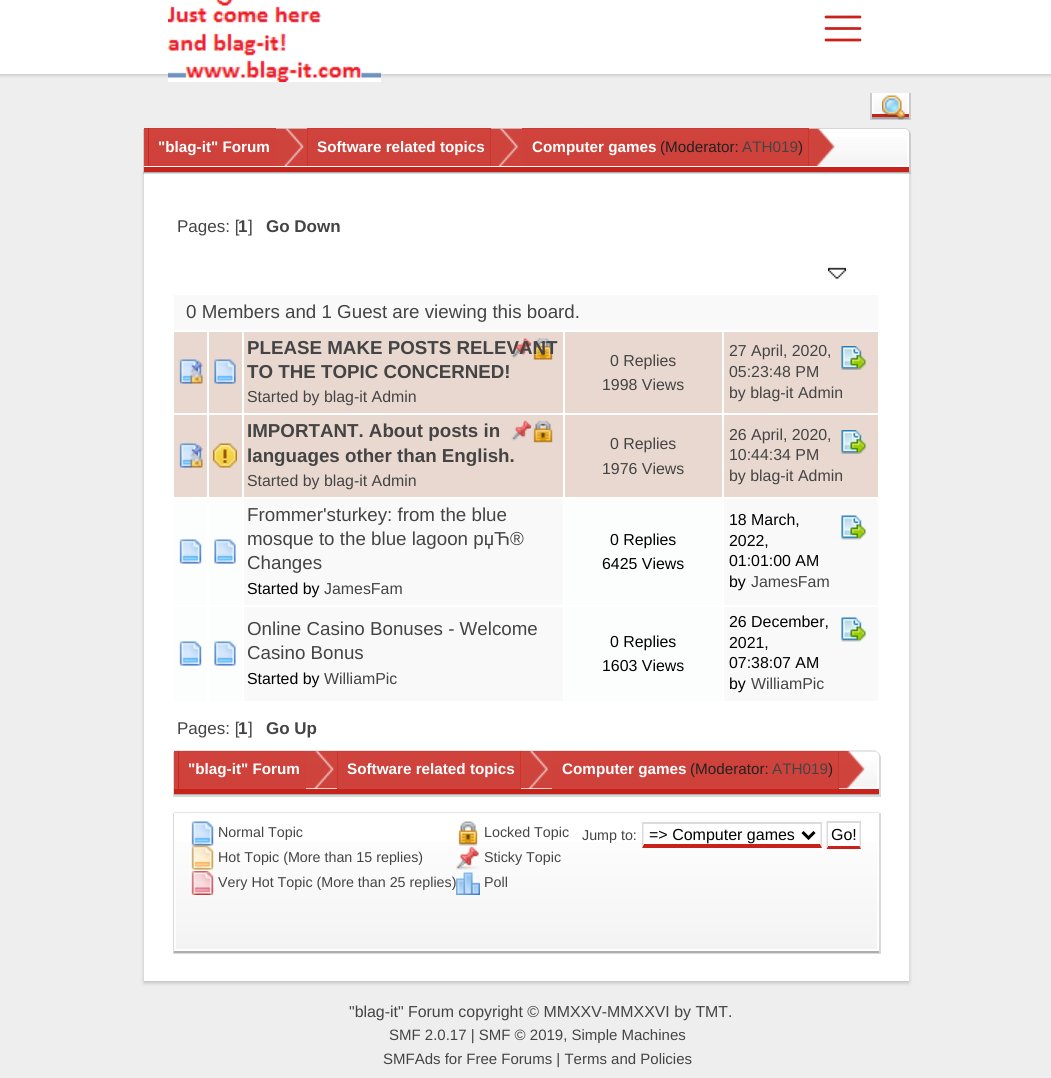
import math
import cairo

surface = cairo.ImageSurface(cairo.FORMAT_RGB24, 1051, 1078)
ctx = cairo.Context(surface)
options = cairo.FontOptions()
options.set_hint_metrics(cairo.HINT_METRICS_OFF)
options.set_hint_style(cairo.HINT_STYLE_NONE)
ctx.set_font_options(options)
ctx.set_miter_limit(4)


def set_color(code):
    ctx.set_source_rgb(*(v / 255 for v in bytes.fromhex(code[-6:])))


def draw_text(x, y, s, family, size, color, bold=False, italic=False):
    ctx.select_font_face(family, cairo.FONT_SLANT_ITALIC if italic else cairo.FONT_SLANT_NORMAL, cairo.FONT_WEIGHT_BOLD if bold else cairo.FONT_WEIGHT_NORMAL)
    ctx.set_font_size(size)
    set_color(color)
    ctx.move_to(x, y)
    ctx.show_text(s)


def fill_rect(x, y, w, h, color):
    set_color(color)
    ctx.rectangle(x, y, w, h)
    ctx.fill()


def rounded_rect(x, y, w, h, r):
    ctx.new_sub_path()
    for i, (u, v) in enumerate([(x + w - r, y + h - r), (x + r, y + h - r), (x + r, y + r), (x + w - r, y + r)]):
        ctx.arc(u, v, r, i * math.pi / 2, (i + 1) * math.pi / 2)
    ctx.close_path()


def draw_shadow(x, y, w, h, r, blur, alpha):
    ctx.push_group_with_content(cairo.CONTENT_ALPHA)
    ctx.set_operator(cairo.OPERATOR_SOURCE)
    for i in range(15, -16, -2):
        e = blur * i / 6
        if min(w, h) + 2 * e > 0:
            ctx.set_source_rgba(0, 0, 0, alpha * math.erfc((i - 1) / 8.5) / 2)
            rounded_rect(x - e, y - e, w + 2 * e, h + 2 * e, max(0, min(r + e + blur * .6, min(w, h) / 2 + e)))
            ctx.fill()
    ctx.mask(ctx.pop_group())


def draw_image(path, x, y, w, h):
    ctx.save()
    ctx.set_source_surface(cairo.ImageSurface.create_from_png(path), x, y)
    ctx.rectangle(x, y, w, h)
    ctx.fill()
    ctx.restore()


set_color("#eeeeee")
ctx.paint()
set_color("#000000")
draw_shadow(0, -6, 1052, 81, 0, 2, 0.2)
fill_rect(0, 0, 1051, 74, "#ffffff")
draw_image("assets/img1.png", 168, 0, 213, 82)
ctx.new_path()
ctx.move_to(826, 17)
ctx.line_to(860, 17)
ctx.move_to(826, 28.5)
ctx.line_to(860, 28.5)
ctx.move_to(826, 40)
ctx.line_to(860, 40)
set_color("#c7231a")
ctx.set_line_width(2.8)
ctx.set_line_cap(cairo.LINE_CAP_ROUND)
ctx.stroke()
fill_rect(872, 117, 37, 2, "#bebebe")
ctx.set_source_rgba(0, 0, 0, 0.15)
ctx.new_path()
ctx.move_to(870, 93)
ctx.line_to(870, 120)
ctx.line_to(911, 120)
ctx.line_to(911, 93)
ctx.line_to(909, 93)
ctx.line_to(909, 117)
ctx.line_to(872, 117)
ctx.line_to(872, 93)
ctx.close_path()
ctx.fill()
gradient = cairo.LinearGradient(890, 93, 890, 114)
gradient.add_color_stop_rgba(0, 1, 1, 1, 1)
gradient.add_color_stop_rgba(1, 0.953, 0.953, 0.953, 1)
ctx.set_source(gradient)
ctx.rectangle(872, 93, 37, 21)
ctx.fill()
ctx.rectangle(873, 94, 35, 19)
ctx.set_source_rgba(1, 1, 1, 0.8)
ctx.set_line_width(2)
ctx.set_line_cap(cairo.LINE_CAP_BUTT)
ctx.stroke()
fill_rect(872, 114, 37, 3, "#c7231a")
draw_image("assets/img2.png", 882, 95, 23, 25)
set_color("#000000")
draw_shadow(144, 173, 765, 810, 0, 2, 0.2)
fill_rect(144, 172, 765, 1, "#cccccc")
fill_rect(144, 173, 765, 808, "#ffffff")
ctx.set_source_rgba(0, 0, 0, 0.15)
ctx.new_path()
ctx.move_to(143, 129)
ctx.line_to(143, 174)
ctx.line_to(911, 174)
ctx.line_to(911, 135)
ctx.curve_to(911, 132, 908, 129, 905, 129)
ctx.line_to(904, 129)
ctx.curve_to(907, 129, 909, 131, 909, 134)
ctx.line_to(909, 171)
ctx.line_to(144, 171)
ctx.line_to(144, 129)
ctx.close_path()
ctx.fill()
ctx.set_source_rgba(0, 0, 0, 0.1)
ctx.new_path()
ctx.move_to(144, 128)
ctx.line_to(144, 129)
ctx.line_to(904, 129)
ctx.curve_to(907, 129, 909, 131, 909, 134)
ctx.curve_to(909, 131, 907, 128, 904, 128)
ctx.close_path()
ctx.fill()
set_color("#ffffff")
ctx.new_path()
ctx.move_to(144, 129)
ctx.line_to(904, 129)
ctx.curve_to(907, 129, 909, 131, 909, 134)
ctx.line_to(909, 171)
ctx.line_to(144, 171)
ctx.close_path()
ctx.fill()
gradient = cairo.LinearGradient(527, 129, 527, 167)
gradient.add_color_stop_rgba(0, 0.941, 0.941, 0.941, 0)
gradient.add_color_stop_rgba(1, 0.941, 0.941, 0.941, 0.8)
ctx.set_source(gradient)
ctx.rectangle(144, 137, 765, 30)
ctx.fill()
ctx.new_path()
ctx.move_to(145, 130)
ctx.line_to(904, 130)
ctx.curve_to(906, 130, 908, 132, 908, 134)
ctx.line_to(908, 166)
ctx.line_to(145, 166)
ctx.close_path()
ctx.set_source_rgba(1, 1, 1, 0.8)
ctx.stroke()
fill_rect(144, 167, 765, 5, "#c7231a")
ctx.set_source_rgba(0.78, 0.137, 0.102, 0.85)
ctx.rectangle(144, 128, 5, 38)
ctx.fill()
ctx.rectangle(148, 128, 128, 38)
ctx.fill()
draw_text(158, 152, "\"blag-it\" Forum", "Liberation Sans", 15.25, "#ffffff", bold=True)
draw_image("assets/img3.png", 276, 128, 26, 38)
draw_image("assets/img4.png", 285, 128, 23, 38)
ctx.set_source_rgba(0.78, 0.137, 0.102, 0.85)
ctx.rectangle(307, 128, 184, 38)
ctx.fill()
draw_text(317, 152, "Software related topics", "Liberation Sans", 15.25, "#ffffff", bold=True)
draw_image("assets/img5.png", 490, 128, 27, 38)
draw_image("assets/img6.png", 500, 128, 22, 38)
ctx.set_source_rgba(0.78, 0.137, 0.102, 0.85)
ctx.rectangle(522, 128, 287, 38)
ctx.fill()
draw_text(532, 152, "Computer games", "Liberation Sans", 15.25, "#ffffff", bold=True)
draw_text(660, 152, "(Moderator:", "Liberation Sans", 15.25, "#222222")
draw_text(742, 152, "ATH019", "Liberation Sans", 15.25, "#444444")
draw_text(798, 152, ")", "Liberation Sans", 15.25, "#222222")
draw_image("assets/img5.png", 808, 128, 27, 38)
draw_text(177, 232, "Pages: [", "Liberation Sans", 17, "#444444")
draw_text(238, 232, "1", "Liberation Sans", 17, "#444444", bold=True)
draw_text(248, 232, "]", "Liberation Sans", 17, "#444444")
draw_text(266, 232, "Go Down", "Liberation Sans", 17, "#444444", bold=True)
draw_image("assets/img7.png", 828, 267, 18, 12)
fill_rect(174, 295, 704, 35, "#f9f9f9")
draw_text(186, 318, "0 Members and 1 Guest are viewing this board.", "Liberation Sans", 18.75, "#444444")
fill_rect(174, 332, 33, 81, "#e8d8cf")
draw_image("assets/img8.png", 179, 359, 24, 25)
fill_rect(209, 332, 33, 81, "#e8d8cf")
draw_image("assets/img9.png", 214, 359, 22, 25)
fill_rect(244, 332, 319, 81, "#e8d8cf")
draw_image("assets/img10.png", 511, 338, 42, 22)
draw_text(247, 354, "PLEASE MAKE POSTS RELEVANT", "Liberation Sans", 18.75, "#444444", bold=True)
draw_text(247, 378, "TO THE TOPIC CONCERNED!", "Liberation Sans", 18.75, "#444444", bold=True)
draw_text(247, 402, "Started by blag-it Admin", "Liberation Sans", 15.9, "#444444")
fill_rect(565, 332, 157, 81, "#e8d8cf")
draw_text(610, 366, "0 Replies", "Liberation Sans", 15.9, "#444444")
draw_text(602, 390, "1998 Views", "Liberation Sans", 15.9, "#444444")
fill_rect(724, 332, 154, 81, "#e8d8cf")
draw_text(729, 356, "27 April, 2020,", "Liberation Sans", 15.9, "#444444")
draw_image("assets/img11.png", 841, 346, 25, 24)
draw_text(729, 377, "05:23:48 PM", "Liberation Sans", 15.9, "#444444")
draw_text(729, 398, "by blag-it Admin", "Liberation Sans", 15.9, "#444444")
fill_rect(174, 415, 33, 82, "#e8d8cf")
draw_image("assets/img8.png", 179, 443, 24, 25)
fill_rect(209, 415, 33, 82, "#e8d8cf")
draw_image("assets/img12.png", 213, 443, 24, 25)
fill_rect(244, 415, 319, 82, "#e8d8cf")
draw_image("assets/img13.png", 511, 420, 42, 23)
draw_text(247, 437, "IMPORTANT. About posts in", "Liberation Sans", 18.75, "#444444", bold=True)
draw_text(247, 462, "languages other than English.", "Liberation Sans", 18.75, "#444444", bold=True)
draw_text(247, 486, "Started by blag-it Admin", "Liberation Sans", 15.9, "#444444")
fill_rect(565, 415, 157, 82, "#e8d8cf")
draw_text(610, 449, "0 Replies", "Liberation Sans", 15.9, "#444444")
draw_text(602, 474, "1976 Views", "Liberation Sans", 15.9, "#444444")
fill_rect(724, 415, 154, 82, "#e8d8cf")
draw_text(729, 440, "26 April, 2020,", "Liberation Sans", 15.9, "#444444")
draw_image("assets/img11.png", 841, 430, 25, 24)
draw_text(729, 460, "10:44:34 PM", "Liberation Sans", 15.9, "#444444")
draw_text(729, 481, "by blag-it Admin", "Liberation Sans", 15.9, "#444444")
fill_rect(174, 499, 33, 106, "#fcfdfd")
draw_image("assets/img14.png", 179, 539, 23, 25)
fill_rect(209, 499, 33, 106, "#fcfdfd")
draw_image("assets/img15.png", 214, 539, 22, 25)
fill_rect(244, 499, 319, 106, "#f9f9f9")
draw_text(247, 521, "Frommer'sturkey: from the blue", "Liberation Sans", 18.75, "#444444")
draw_text(247, 545, "mosque to the blue lagoon рџЋ®", "Liberation Sans", 18.75, "#444444")
draw_text(247, 569, "Changes", "Liberation Sans", 18.75, "#444444")
draw_text(247, 594, "Started by", "Liberation Sans", 15.9, "#000000")
draw_text(324, 594, "JamesFam", "Liberation Sans", 15.9, "#444444")
fill_rect(565, 499, 157, 106, "#fcfdfd")
draw_text(610, 545, "0 Replies", "Liberation Sans", 15.9, "#000000")
draw_text(602, 569, "6425 Views", "Liberation Sans", 15.9, "#000000")
fill_rect(724, 499, 154, 106, "#f9f9f9")
draw_text(729, 525, "18 March,", "Liberation Sans", 15.9, "#000000")
draw_image("assets/img16.png", 841, 515, 25, 25)
draw_text(729, 546, "2022,", "Liberation Sans", 15.9, "#000000")
draw_text(729, 566, "01:01:00 AM", "Liberation Sans", 15.9, "#000000")
draw_text(729, 587, "by", "Liberation Sans", 15.9, "#000000")
draw_text(751, 587, "JamesFam", "Liberation Sans", 15.9, "#444444")
fill_rect(174, 607, 33, 94, "#fcfdfd")
draw_image("assets/img14.png", 179, 641, 23, 25)
fill_rect(209, 607, 33, 94, "#fcfdfd")
draw_image("assets/img15.png", 214, 641, 22, 25)
fill_rect(244, 607, 319, 94, "#f9f9f9")
draw_text(247, 635, "Online Casino Bonuses - Welcome", "Liberation Sans", 18.75, "#444444")
draw_text(247, 659, "Casino Bonus", "Liberation Sans", 18.75, "#444444")
draw_text(247, 684, "Started by", "Liberation Sans", 15.9, "#000000")
draw_text(324, 684, "WilliamPic", "Liberation Sans", 15.9, "#444444")
fill_rect(565, 607, 157, 94, "#fcfdfd")
draw_text(610, 647, "0 Replies", "Liberation Sans", 15.9, "#000000")
draw_text(602, 671, "1603 Views", "Liberation Sans", 15.9, "#000000")
fill_rect(724, 607, 154, 94, "#f9f9f9")
draw_text(729, 627, "26 December,", "Liberation Sans", 15.9, "#000000")
draw_image("assets/img16.png", 841, 617, 25, 25)
draw_text(729, 648, "2021,", "Liberation Sans", 15.9, "#000000")
draw_text(729, 668, "07:38:07 AM", "Liberation Sans", 15.9, "#000000")
draw_text(729, 689, "by", "Liberation Sans", 15.9, "#000000")
draw_text(751, 689, "WilliamPic", "Liberation Sans", 15.9, "#444444")
draw_text(177, 734, "Pages: [", "Liberation Sans", 17, "#444444")
draw_text(238, 734, "1", "Liberation Sans", 17, "#444444", bold=True)
draw_text(248, 734, "]", "Liberation Sans", 17, "#444444")
draw_text(266, 734, "Go Up", "Liberation Sans", 17, "#444444", bold=True)
fill_rect(174, 794, 705, 1, "#cccccc")
ctx.set_source_rgba(0, 0, 0, 0.15)
ctx.new_path()
ctx.move_to(173, 752)
ctx.line_to(173, 797)
ctx.line_to(881, 797)
ctx.line_to(881, 758)
ctx.curve_to(881, 755, 879, 753, 877, 752)
ctx.curve_to(878, 753, 879, 755, 879, 756)
ctx.line_to(879, 794)
ctx.line_to(174, 794)
ctx.line_to(174, 752)
ctx.close_path()
ctx.fill()
ctx.set_source_rgba(0, 0, 0, 0.1)
ctx.new_path()
ctx.move_to(174, 750)
ctx.line_to(174, 752)
ctx.line_to(874, 752)
ctx.curve_to(877, 752, 879, 754, 879, 756)
ctx.curve_to(879, 753, 877, 750, 874, 750)
ctx.close_path()
ctx.fill()
set_color("#ffffff")
ctx.new_path()
ctx.move_to(174, 752)
ctx.line_to(874, 752)
ctx.curve_to(877, 752, 879, 754, 879, 757)
ctx.line_to(879, 794)
ctx.line_to(174, 794)
ctx.close_path()
ctx.fill()
gradient = cairo.LinearGradient(527, 752, 527, 789)
gradient.add_color_stop_rgba(0, 0.941, 0.941, 0.941, 0)
gradient.add_color_stop_rgba(1, 0.941, 0.941, 0.941, 0.8)
ctx.set_source(gradient)
ctx.rectangle(174, 760, 705, 29)
ctx.fill()
ctx.new_path()
ctx.move_to(175, 753)
ctx.line_to(874, 753)
ctx.curve_to(876, 753, 878, 755, 878, 757)
ctx.line_to(878, 788)
ctx.line_to(175, 788)
ctx.close_path()
ctx.set_source_rgba(1, 1, 1, 0.8)
ctx.stroke()
fill_rect(174, 789, 705, 5, "#c7231a")
ctx.set_source_rgba(0.78, 0.137, 0.102, 0.85)
ctx.rectangle(174, 751, 5, 38)
ctx.fill()
ctx.rectangle(178, 751, 128, 38)
ctx.fill()
draw_text(188, 774, "\"blag-it\" Forum", "Liberation Sans", 15.25, "#ffffff", bold=True)
draw_image("assets/img17.png", 306, 751, 26, 38)
draw_image("assets/img18.png", 315, 751, 23, 38)
ctx.set_source_rgba(0.78, 0.137, 0.102, 0.85)
ctx.rectangle(337, 751, 184, 38)
ctx.fill()
draw_text(347, 774, "Software related topics", "Liberation Sans", 15.25, "#ffffff", bold=True)
draw_image("assets/img19.png", 520, 751, 27, 38)
draw_image("assets/img20.png", 530, 751, 22, 38)
ctx.set_source_rgba(0.78, 0.137, 0.102, 0.85)
ctx.rectangle(552, 751, 287, 38)
ctx.fill()
draw_text(562, 774, "Computer games", "Liberation Sans", 15.25, "#ffffff", bold=True)
draw_text(690, 774, "(Moderator:", "Liberation Sans", 15.25, "#222222")
draw_text(772, 774, "ATH019", "Liberation Sans", 15.25, "#444444")
draw_text(828, 774, ")", "Liberation Sans", 15.25, "#222222")
draw_image("assets/img21.png", 838, 751, 27, 38)
fill_rect(174, 951, 705, 2, "#cccccc")
ctx.set_source_rgba(0, 0, 0, 0.15)
ctx.new_path()
ctx.move_to(173, 813)
ctx.line_to(173, 954)
ctx.line_to(881, 954)
ctx.line_to(881, 813)
ctx.line_to(879, 813)
ctx.line_to(879, 951)
ctx.line_to(174, 951)
ctx.line_to(174, 813)
ctx.close_path()
ctx.fill()
fill_rect(174, 812, 705, 1, "#e6e6e6")
gradient = cairo.LinearGradient(527, 813, 527, 951)
gradient.add_color_stop_rgba(0, 1, 1, 1, 1)
gradient.add_color_stop_rgba(1, 0.953, 0.953, 0.953, 1)
ctx.set_source(gradient)
ctx.rectangle(174, 842, 705, 109)
ctx.fill()
ctx.rectangle(175, 814, 703, 136)
ctx.set_source_rgba(1, 1, 1, 0.8)
ctx.stroke()
draw_image("assets/img22.png", 191, 821, 23, 25)
draw_text(218, 837, "Normal Topic", "Liberation Sans", 14.3, "#444444")
draw_image("assets/img23.png", 191, 845, 23, 25)
draw_text(218, 862, "Hot Topic (More than 15 replies)", "Liberation Sans", 14.3, "#444444")
draw_image("assets/img24.png", 191, 871, 23, 24)
draw_text(218, 887, "Very Hot Topic (More than 25 replies)", "Liberation Sans", 14.3, "#444444")
draw_image("assets/img25.png", 458, 821, 20, 25)
draw_text(484, 837, "Locked Topic", "Liberation Sans", 14.3, "#444444")
draw_image("assets/img26.png", 456, 846, 23, 24)
draw_text(484, 862, "Sticky Topic", "Liberation Sans", 14.3, "#444444")
draw_image("assets/img27.png", 456, 872, 24, 23)
draw_text(484, 887, "Poll", "Liberation Sans", 14.3, "#444444")
draw_text(582, 840, "Jump to:", "Liberation Sans", 14.3, "#444444")
fill_rect(644, 842, 177, 3, "#ffffff")
fill_rect(642, 822, 180, 2, "#dbdbdb")
ctx.new_path()
ctx.move_to(822, 822)
ctx.line_to(822, 847.5)
ctx.line_to(820.5, 844.5)
ctx.line_to(820.5, 823.5)
ctx.close_path()
ctx.fill()
set_color("#c7231a")
ctx.new_path()
ctx.move_to(822, 848)
ctx.line_to(642, 848)
ctx.line_to(644, 844)
ctx.line_to(820, 844)
ctx.close_path()
ctx.fill()
set_color("#dbdbdb")
ctx.new_path()
ctx.move_to(642, 847.5)
ctx.line_to(642, 822)
ctx.line_to(643.5, 823.5)
ctx.line_to(643.5, 844.5)
ctx.close_path()
ctx.fill()
ctx.new_path()
ctx.move_to(802.5, 832)
ctx.line_to(808.5, 838)
ctx.line_to(814.5, 832)
set_color("#000000")
ctx.set_line_width(3)
ctx.stroke()
draw_text(649, 840, "=> Computer games", "Liberation Sans", 16, "#000000")
fill_rect(828, 842, 32, 4, "#ffffff")
fill_rect(827, 821, 34, 2, "#dbdbdb")
ctx.new_path()
ctx.move_to(861, 820.5)
ctx.line_to(861, 849)
ctx.line_to(859.5, 846)
ctx.line_to(859.5, 822)
ctx.close_path()
ctx.fill()
set_color("#c7231a")
ctx.new_path()
ctx.move_to(861, 849)
ctx.line_to(826.5, 849)
ctx.line_to(828, 846)
ctx.line_to(859.5, 846)
ctx.close_path()
ctx.fill()
set_color("#dbdbdb")
ctx.new_path()
ctx.move_to(826.5, 849)
ctx.line_to(826.5, 820.5)
ctx.line_to(828, 822)
ctx.line_to(828, 846)
ctx.close_path()
ctx.fill()
draw_text(831, 840, "Go!", "Liberation Sans", 16, "#000000")
draw_text(349, 1017, "\"blag-it\" Forum copyright © MMXXV-MMXXVI by TMT.", "Liberation Sans", 15.9, "#444444")
draw_text(389, 1040, "SMF 2.0.17 | SMF © 2019, Simple Machines", "Liberation Sans", 15, "#444444")
draw_text(383, 1064, "SMFAds for Free Forums | Terms and Policies", "Liberation Sans", 15, "#444444")
surface.write_to_png("output.png")
